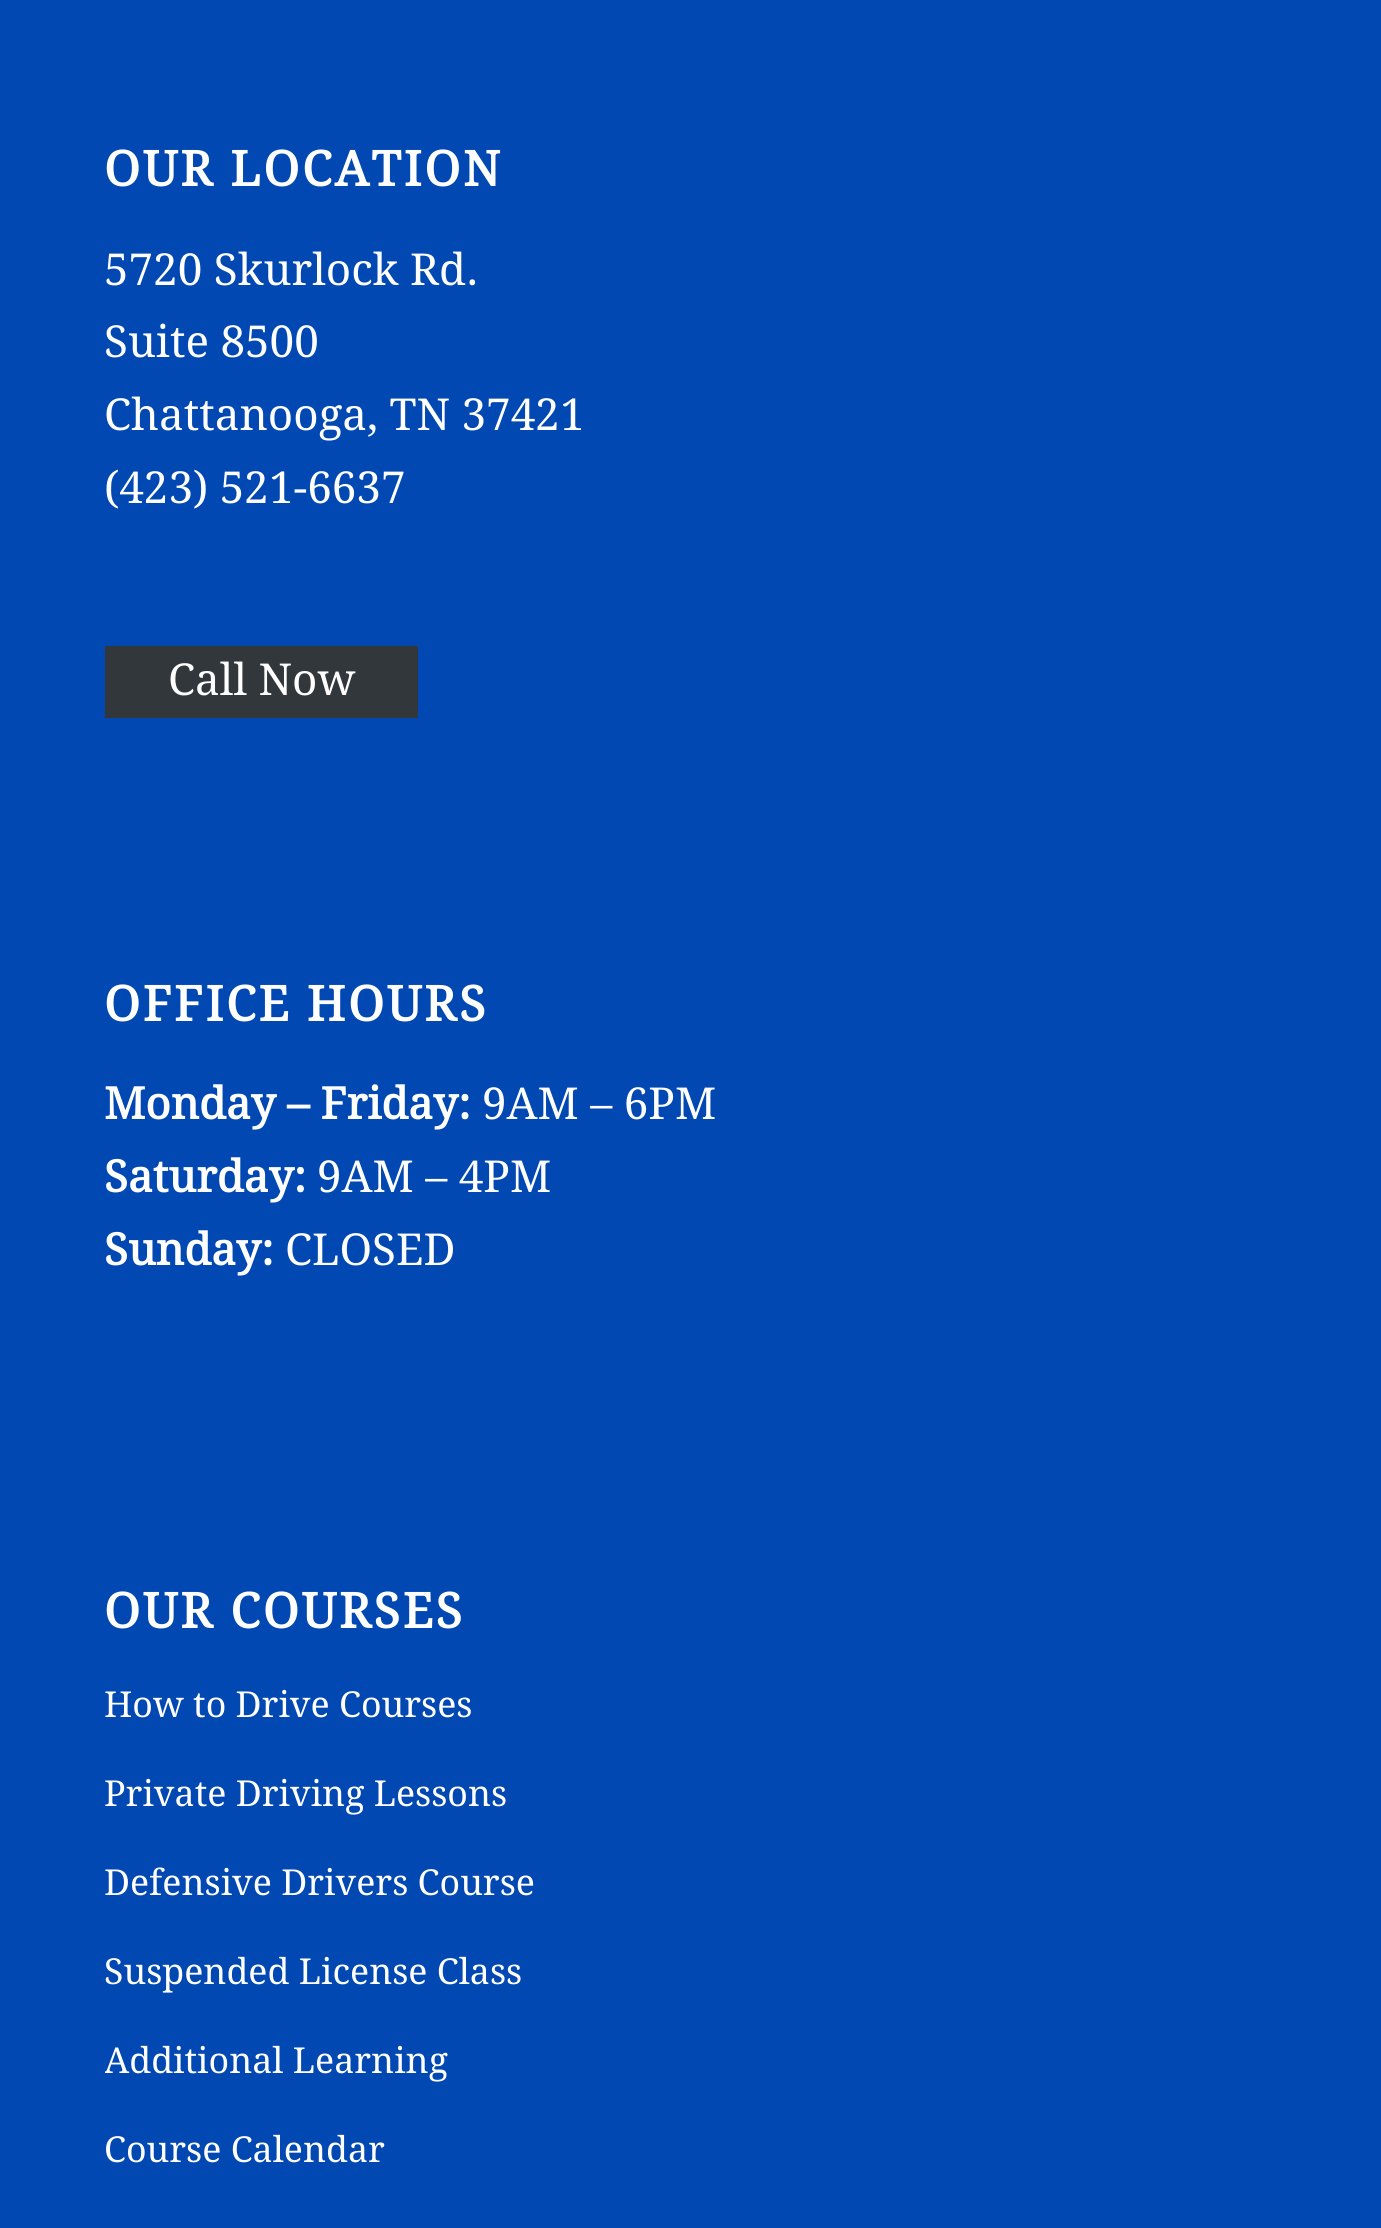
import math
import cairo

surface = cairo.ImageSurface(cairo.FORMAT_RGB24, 1381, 2228)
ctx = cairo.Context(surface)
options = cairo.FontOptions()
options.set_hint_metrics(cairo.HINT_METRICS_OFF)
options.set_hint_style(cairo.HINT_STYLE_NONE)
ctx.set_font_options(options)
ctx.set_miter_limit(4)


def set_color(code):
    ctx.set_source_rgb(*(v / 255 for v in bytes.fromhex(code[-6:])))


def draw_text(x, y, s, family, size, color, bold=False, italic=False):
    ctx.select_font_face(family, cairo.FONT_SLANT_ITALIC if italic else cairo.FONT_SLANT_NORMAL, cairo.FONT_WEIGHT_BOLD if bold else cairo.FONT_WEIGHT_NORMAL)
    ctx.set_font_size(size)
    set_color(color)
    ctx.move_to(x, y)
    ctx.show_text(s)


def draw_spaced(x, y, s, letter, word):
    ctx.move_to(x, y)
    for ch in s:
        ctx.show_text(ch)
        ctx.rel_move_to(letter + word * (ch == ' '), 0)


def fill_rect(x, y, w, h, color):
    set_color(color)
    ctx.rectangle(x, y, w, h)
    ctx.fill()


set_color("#0148b2")
ctx.paint()
ctx.select_font_face("Droid Serif", cairo.FONT_SLANT_NORMAL, cairo.FONT_WEIGHT_BOLD)
ctx.set_font_size(48.5)
set_color("#ffffff")
draw_spaced(104, 186, "OUR LOCATION", 2.75, 0)
draw_text(104, 285, "5720 Skurlock Rd.", "Droid Serif", 44, "#ffffff")
draw_text(104, 357, "Suite 8500", "Droid Serif", 44, "#ffffff")
draw_text(104, 430, "Chattanooga, TN 37421", "Droid Serif", 44, "#ffffff")
draw_text(104, 503, "(423) 521-6637", "Droid Serif", 44, "#ffffff")
fill_rect(105, 646, 313, 72, "#32373c")
draw_text(168, 695, "Call Now", "Droid Serif", 44, "#ffffff")
ctx.select_font_face("Droid Serif", cairo.FONT_SLANT_NORMAL, cairo.FONT_WEIGHT_BOLD)
ctx.set_font_size(48.5)
draw_spaced(104, 1021, "OFFICE HOURS", 2.75, 0)
draw_text(104, 1119, "Monday – Friday:", "Droid Serif", 44, "#ffffff", bold=True)
draw_text(482, 1119, "9AM – 6PM", "Droid Serif", 44, "#ffffff")
draw_text(104, 1192, "Saturday:", "Droid Serif", 44, "#ffffff", bold=True)
draw_text(317, 1192, "9AM – 4PM", "Droid Serif", 44, "#ffffff")
draw_text(104, 1265, "Sunday:", "Droid Serif", 44, "#ffffff", bold=True)
draw_text(285, 1265, "CLOSED", "Droid Serif", 44, "#ffffff")
ctx.select_font_face("Droid Serif", cairo.FONT_SLANT_NORMAL, cairo.FONT_WEIGHT_BOLD)
ctx.set_font_size(48.5)
draw_spaced(104, 1628, "OUR COURSES", 2.75, 0)
draw_text(104, 1717, "How to Drive Courses", "Droid Serif", 35.75, "#ffffff")
draw_text(104, 1806, "Private Driving Lessons", "Droid Serif", 35.75, "#ffffff")
draw_text(104, 1895, "Defensive Drivers Course", "Droid Serif", 35.75, "#ffffff")
draw_text(104, 1984, "Suspended License Class", "Droid Serif", 35.75, "#ffffff")
ctx.save()
ctx.rectangle(105, 1546, 1174, 651)
ctx.clip()
draw_text(104, 2073, "Additional Learning", "Droid Serif", 35.75, "#ffffff")
ctx.restore()
draw_text(104, 2162, "Course Calendar", "Droid Serif", 35.75, "#ffffff")
surface.write_to_png("output.png")
